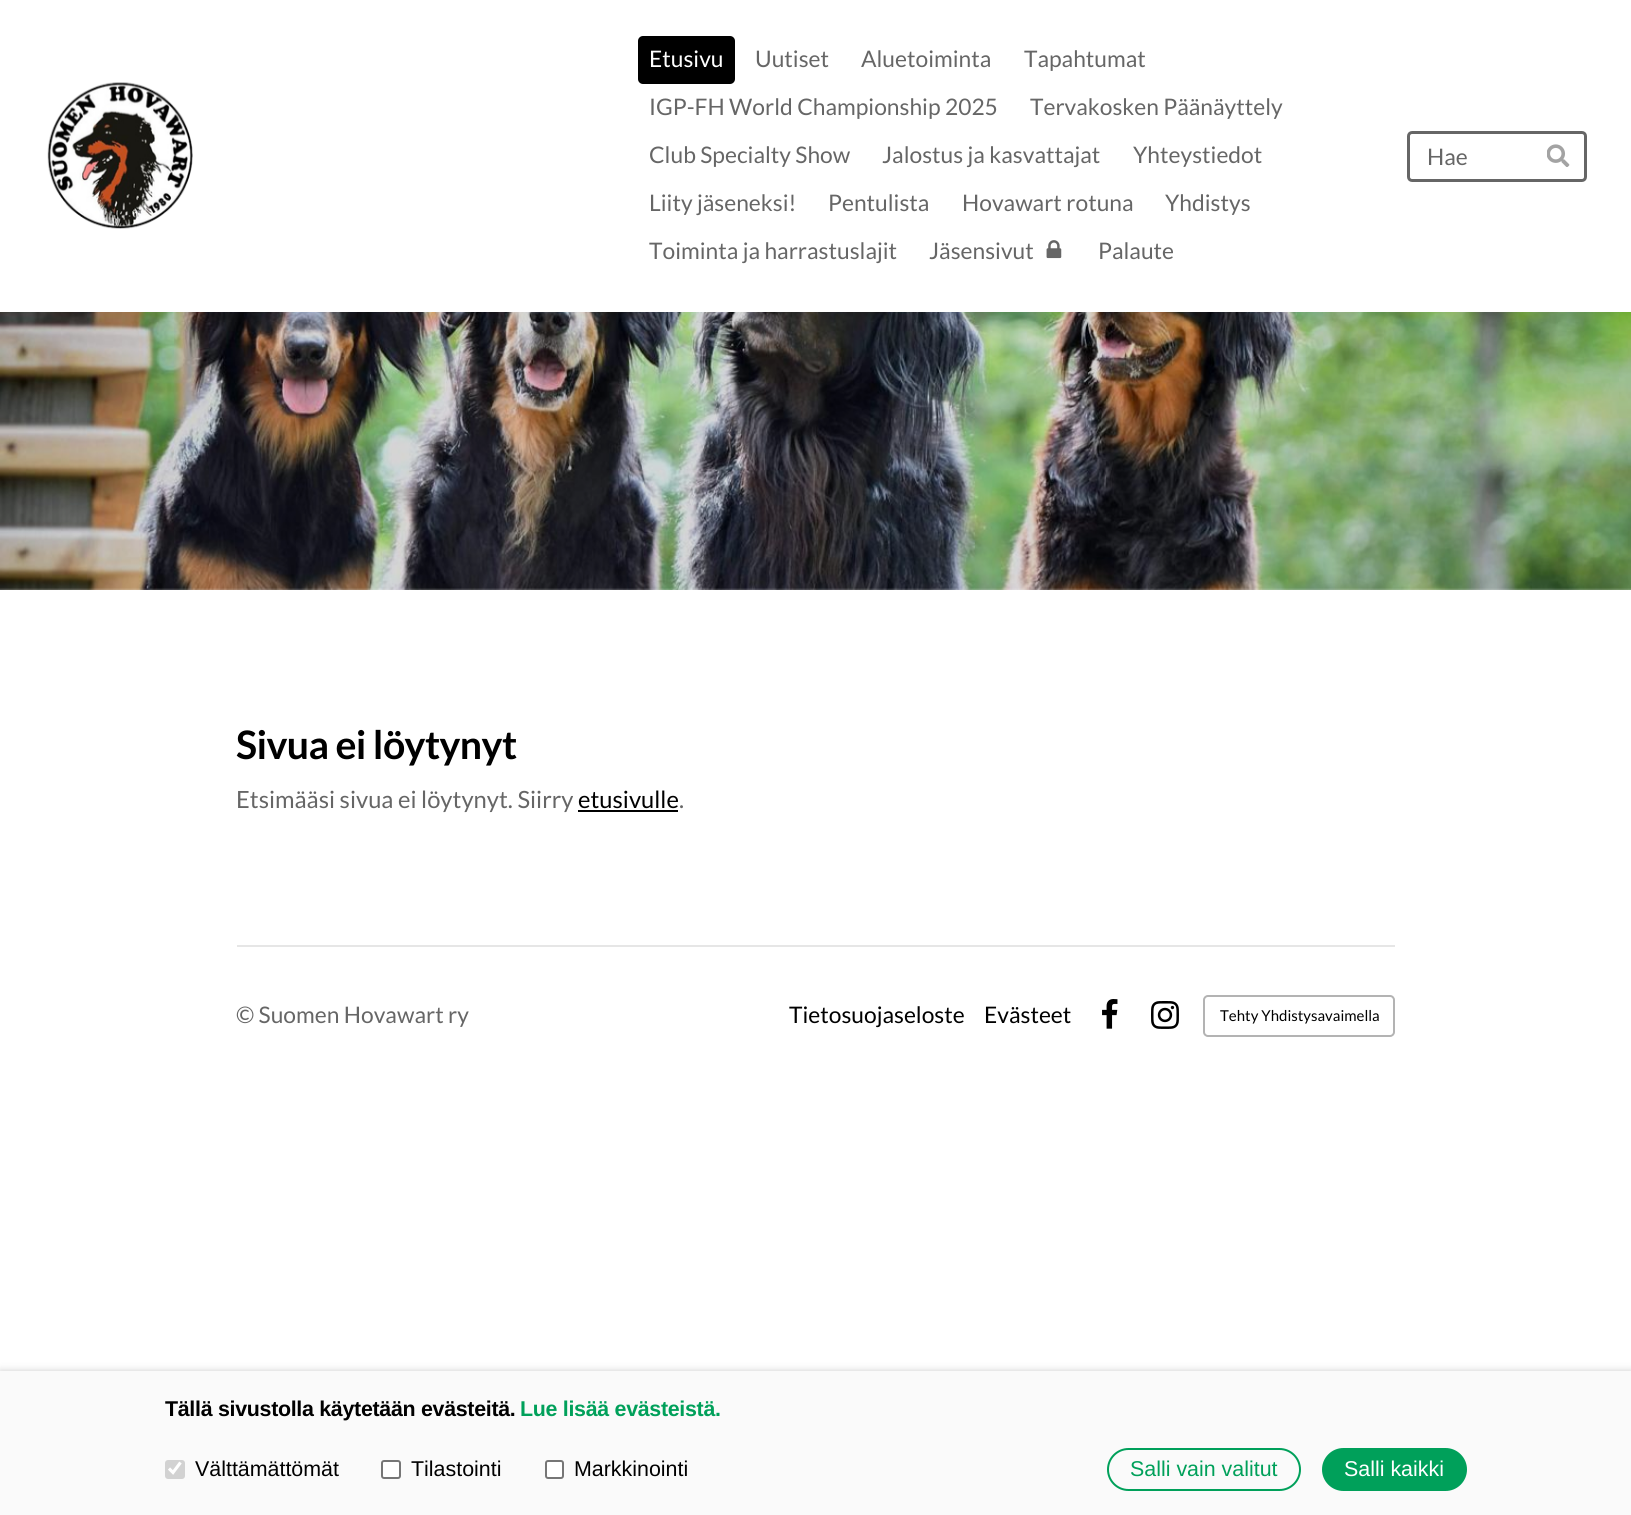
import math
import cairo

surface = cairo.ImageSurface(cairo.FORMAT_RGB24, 1631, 1515)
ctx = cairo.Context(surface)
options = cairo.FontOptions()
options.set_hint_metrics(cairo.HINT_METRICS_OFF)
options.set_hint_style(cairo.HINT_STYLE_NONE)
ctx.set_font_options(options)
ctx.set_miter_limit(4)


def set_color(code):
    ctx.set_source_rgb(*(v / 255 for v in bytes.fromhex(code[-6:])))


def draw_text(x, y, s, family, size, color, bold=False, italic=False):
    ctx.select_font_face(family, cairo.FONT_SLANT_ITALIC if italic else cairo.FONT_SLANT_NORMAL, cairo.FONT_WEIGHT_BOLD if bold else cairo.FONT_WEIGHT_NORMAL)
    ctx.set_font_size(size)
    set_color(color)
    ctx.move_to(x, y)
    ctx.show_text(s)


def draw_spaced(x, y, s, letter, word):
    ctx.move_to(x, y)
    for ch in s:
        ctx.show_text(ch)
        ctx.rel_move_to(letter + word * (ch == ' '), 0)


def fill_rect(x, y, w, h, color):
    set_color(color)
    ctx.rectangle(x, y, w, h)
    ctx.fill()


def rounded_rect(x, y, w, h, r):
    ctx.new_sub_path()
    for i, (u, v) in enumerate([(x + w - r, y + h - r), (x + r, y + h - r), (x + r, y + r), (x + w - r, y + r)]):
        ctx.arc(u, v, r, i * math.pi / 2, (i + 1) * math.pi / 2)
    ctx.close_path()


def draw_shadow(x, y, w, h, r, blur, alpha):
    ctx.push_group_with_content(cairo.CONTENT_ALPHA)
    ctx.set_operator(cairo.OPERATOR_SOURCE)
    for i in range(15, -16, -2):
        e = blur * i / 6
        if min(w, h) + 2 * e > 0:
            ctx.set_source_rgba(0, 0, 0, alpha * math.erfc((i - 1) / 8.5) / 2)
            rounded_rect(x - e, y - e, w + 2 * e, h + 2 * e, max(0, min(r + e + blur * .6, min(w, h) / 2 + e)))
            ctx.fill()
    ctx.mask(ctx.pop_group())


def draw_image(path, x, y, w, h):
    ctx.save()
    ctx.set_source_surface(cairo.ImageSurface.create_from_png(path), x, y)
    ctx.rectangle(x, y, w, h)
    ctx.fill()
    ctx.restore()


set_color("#ffffff")
ctx.paint()
draw_image("assets/img1.png", 0, 312, 1631, 278)
draw_image("assets/img2.png", 47, 82, 146, 147)
set_color("#000000")
rounded_rect(638, 36, 97, 48, 5)
ctx.fill()
draw_text(649, 67, "Etusivu", "Lato", 22.8, "#ffffff")
draw_text(755, 67, "Uutiset", "Lato", 22.8, "#666666")
draw_text(861, 67, "Aluetoiminta", "Lato", 22.8, "#666666")
draw_text(1024, 67, "Tapahtumat", "Lato", 22.8, "#666666")
draw_text(649, 115, "IGP-FH World Championship 2025", "Lato", 22.8, "#666666")
draw_text(1030, 115, "Tervakosken Päänäyttely", "Lato", 22.8, "#666666")
draw_text(649, 163, "Club Specialty Show", "Lato", 22.8, "#666666")
draw_text(882, 163, "Jalostus ja kasvattajat", "Lato", 22.8, "#666666")
draw_text(1133, 163, "Yhteystiedot", "Lato", 22.8, "#666666")
draw_text(649, 211, "Liity jäseneksi!", "Lato", 22.8, "#666666")
draw_text(828, 211, "Pentulista", "Lato", 22.8, "#666666")
draw_text(962, 211, "Hovawart rotuna", "Lato", 22.8, "#666666")
draw_text(1165, 211, "Yhdistys", "Lato", 22.8, "#666666")
draw_text(649, 259, "Toiminta ja harrastuslajit", "Lato", 22.8, "#666666")
draw_text(929, 259, "Jäsensivut", "Lato", 22.8, "#666666")
draw_image("assets/img3.png", 1046, 240, 16, 19)
draw_text(1098, 259, "Palaute", "Lato", 22.8, "#666666")
rounded_rect(1408.5, 132.5, 177, 48, 3.5)
ctx.set_line_width(3)
ctx.stroke()
draw_text(1427, 165, "Hae", "Lato", 22.8, "#666666")
draw_image("assets/img4.png", 1547, 144, 23, 23)
ctx.select_font_face("Lato", cairo.FONT_SLANT_NORMAL, cairo.FONT_WEIGHT_BOLD)
ctx.set_font_size(39.25)
set_color("#000000")
draw_spaced(236, 759, "Sivua ei löytynyt", -0.6, 0)
draw_text(236, 808, "Etsimääsi sivua ei löytynyt. Siirry", "Lato", 23.75, "#666666")
draw_text(578, 808, "etusivulle", "Lato", 23.75, "#000000")
fill_rect(578, 810, 100, 2, "#000000")
draw_text(679, 808, ".", "Lato", 23.75, "#666666")
fill_rect(237, 945, 1158, 2, "#e6e6e6")
draw_text(236, 1023, "© Suomen Hovawart ry", "Lato", 22.8, "#666666")
draw_text(789, 1023, "Tietosuojaseloste", "Lato", 22.8, "#000000")
draw_text(984, 1023, "Evästeet", "Lato", 22.8, "#000000")
draw_image("assets/img5.png", 1102, 999, 16, 30)
draw_image("assets/img6.png", 1151, 1001, 28, 28)
rounded_rect(1204, 996, 190, 40, 4)
set_color("#b3b3b3")
ctx.set_line_width(2)
ctx.stroke()
draw_text(1220, 1021, "Tehty Yhdistysavaimella", "Lato", 15, "#000000")
set_color("#000000")
draw_shadow(0, 1371, 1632, 144, 0, 4, 0.2)
fill_rect(0, 1371, 1631, 144, "#fafafa")
ctx.select_font_face("Liberation Sans", cairo.FONT_SLANT_NORMAL, cairo.FONT_WEIGHT_BOLD)
ctx.set_font_size(21.4)
set_color("#000000")
draw_spaced(165, 1416, "Tällä sivustolla käytetään evästeitä.", -0.3, 0)
set_color("#00a05a")
draw_spaced(520, 1416, "Lue lisää evästeistä.", -0.3, 0)
set_color("#d2d2d2")
rounded_rect(165, 1460, 20, 19, 3)
ctx.fill()
ctx.new_path()
ctx.move_to(169, 1468.5)
ctx.line_to(173, 1472.5)
ctx.line_to(180.5, 1462.5)
set_color("#ffffff")
ctx.set_line_width(3.1)
ctx.stroke()
draw_text(195, 1476, "Välttämättömät", "Liberation Sans", 21.4, "#000000")
set_color("#ffffff")
rounded_rect(382, 1461, 18, 17, 2)
ctx.fill_preserve()
set_color("#767676")
ctx.set_line_width(2)
ctx.stroke()
draw_text(411, 1476, "Tilastointi", "Liberation Sans", 21.4, "#000000")
set_color("#ffffff")
rounded_rect(546, 1461, 17, 17, 2)
ctx.fill_preserve()
set_color("#767676")
ctx.stroke()
draw_text(574, 1476, "Markkinointi", "Liberation Sans", 21.4, "#000000")
rounded_rect(1108, 1449, 192, 41, 20.5)
set_color("#00a05a")
ctx.stroke()
draw_text(1130, 1476, "Salli vain valitut", "Liberation Sans", 21.4, "#00a05a")
rounded_rect(1323, 1449, 143, 41, 20.5)
ctx.fill_preserve()
ctx.stroke()
draw_text(1344, 1476, "Salli kaikki", "Liberation Sans", 21.4, "#ffffff")
surface.write_to_png("output.png")
